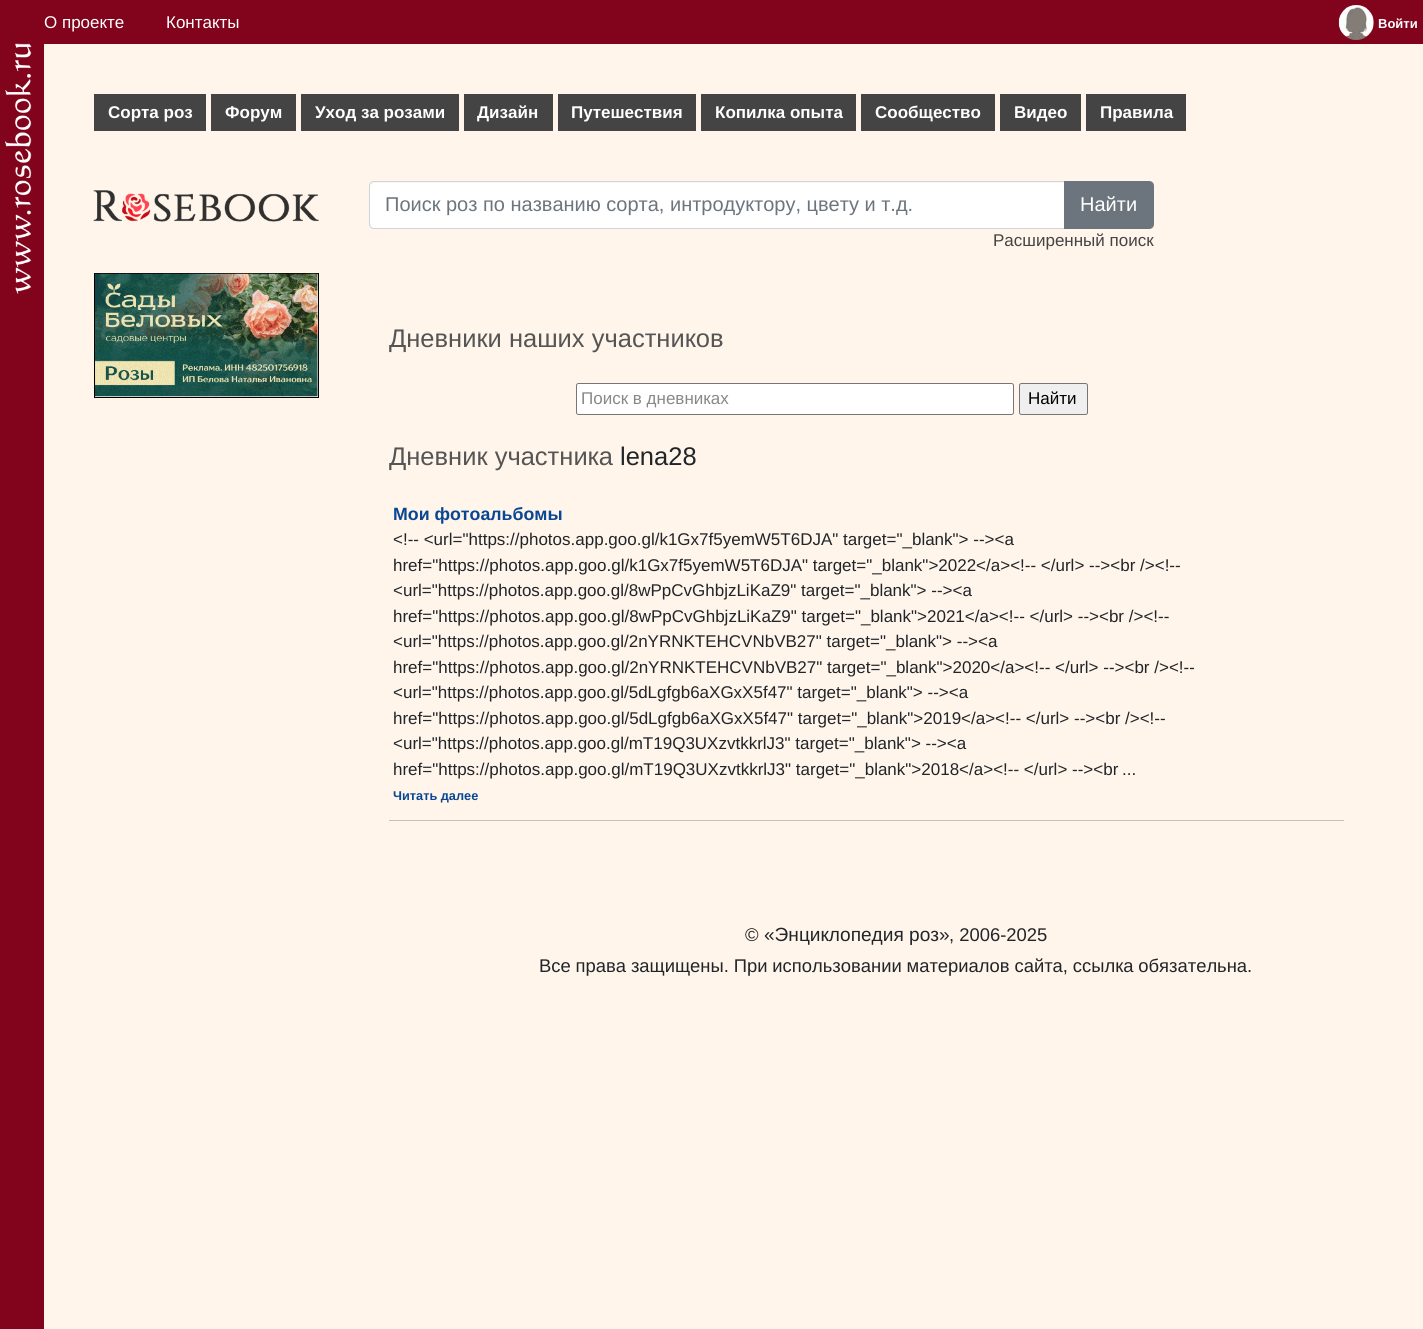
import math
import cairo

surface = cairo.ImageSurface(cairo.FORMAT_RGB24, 1423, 1329)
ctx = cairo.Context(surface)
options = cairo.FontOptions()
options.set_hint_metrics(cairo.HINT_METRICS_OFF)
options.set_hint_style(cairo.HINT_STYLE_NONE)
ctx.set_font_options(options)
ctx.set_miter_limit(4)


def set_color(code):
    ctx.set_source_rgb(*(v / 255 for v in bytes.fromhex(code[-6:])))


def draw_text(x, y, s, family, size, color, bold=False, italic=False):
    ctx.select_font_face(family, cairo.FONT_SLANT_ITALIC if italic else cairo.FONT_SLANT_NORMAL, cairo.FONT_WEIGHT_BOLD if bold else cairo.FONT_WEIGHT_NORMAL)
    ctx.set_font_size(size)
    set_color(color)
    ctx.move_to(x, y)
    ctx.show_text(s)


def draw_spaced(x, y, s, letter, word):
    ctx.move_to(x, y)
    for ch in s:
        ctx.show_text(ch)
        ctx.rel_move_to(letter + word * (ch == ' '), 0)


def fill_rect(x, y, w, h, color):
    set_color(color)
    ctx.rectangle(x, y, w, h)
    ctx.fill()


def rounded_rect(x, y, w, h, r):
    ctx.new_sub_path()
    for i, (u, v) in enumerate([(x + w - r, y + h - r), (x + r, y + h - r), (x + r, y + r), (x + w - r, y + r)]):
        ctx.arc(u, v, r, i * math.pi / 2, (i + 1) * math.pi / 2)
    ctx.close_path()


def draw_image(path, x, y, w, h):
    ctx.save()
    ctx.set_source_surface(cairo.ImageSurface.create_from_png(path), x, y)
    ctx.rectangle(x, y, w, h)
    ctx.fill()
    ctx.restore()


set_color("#fff5eb")
ctx.paint()
fill_rect(0, 0, 44, 1329, "#81031c")
draw_image("assets/img1.png", 5, 43, 27, 251)
fill_rect(44, 0, 1379, 44, "#81031c")
draw_text(44, 28, "О проекте", "Liberation Sans", 17, "#ffffff")
draw_text(166, 28, "Контакты", "Liberation Sans", 17, "#ffffff")
draw_image("assets/img2.png", 1338, 5, 36, 35)
draw_text(1378, 28, "Войти", "Liberation Sans", 13, "#ffffff", bold=True)
fill_rect(94, 94, 112, 37, "#444444")
draw_text(108, 118, "Сорта роз", "Liberation Sans", 17, "#ffffff", bold=True)
fill_rect(211, 94, 85, 37, "#444444")
draw_text(225, 118, "Форум", "Liberation Sans", 17, "#ffffff", bold=True)
fill_rect(301, 94, 158, 37, "#444444")
draw_text(315, 118, "Уход за розами", "Liberation Sans", 17, "#ffffff", bold=True)
fill_rect(464, 94, 89, 37, "#444444")
draw_text(477, 118, "Дизайн", "Liberation Sans", 17, "#ffffff", bold=True)
fill_rect(558, 94, 138, 37, "#444444")
draw_text(571, 118, "Путешествия", "Liberation Sans", 17, "#ffffff", bold=True)
fill_rect(701, 94, 155, 37, "#444444")
draw_text(715, 118, "Копилка опыта", "Liberation Sans", 17, "#ffffff", bold=True)
fill_rect(861, 94, 134, 37, "#444444")
draw_text(875, 118, "Сообщество", "Liberation Sans", 17, "#ffffff", bold=True)
fill_rect(1000, 94, 81, 37, "#444444")
draw_text(1014, 118, "Видео", "Liberation Sans", 17, "#ffffff", bold=True)
fill_rect(1086, 94, 100, 37, "#444444")
draw_text(1100, 118, "Правила", "Liberation Sans", 17, "#ffffff", bold=True)
draw_image("assets/img3.png", 93, 190, 226, 32)
ctx.rectangle(94.5, 273.5, 224, 124)
set_color("#000000")
ctx.set_line_width(1)
ctx.stroke()
draw_image("assets/img4.png", 95, 273, 223, 124)
set_color("#ffffff")
ctx.new_path()
ctx.move_to(374, 183)
ctx.line_to(1064, 183)
ctx.line_to(1064, 228)
ctx.line_to(374, 228)
ctx.curve_to(372, 228, 370, 226, 370, 224)
ctx.line_to(370, 187)
ctx.curve_to(370, 185, 372, 183, 374, 183)
ctx.close_path()
ctx.fill()
ctx.new_path()
ctx.move_to(374, 181.5)
ctx.line_to(1064.5, 181.5)
ctx.line_to(1064.5, 228.5)
ctx.line_to(374, 228.5)
ctx.curve_to(371.5, 228.5, 369.5, 226.5, 369.5, 224)
ctx.line_to(369.5, 186)
ctx.curve_to(369.5, 183.5, 371.5, 181.5, 374, 181.5)
ctx.close_path()
set_color("#ced4da")
ctx.stroke()
draw_text(385, 211, "Поиск роз по названию сорта, интродуктору, цвету и т.д.", "Liberation Sans", 20, "#6c757d")
ctx.new_path()
ctx.move_to(1064, 181)
ctx.line_to(1149, 181)
ctx.curve_to(1152, 181, 1154, 183, 1154, 186)
ctx.line_to(1154, 224)
ctx.curve_to(1154, 227, 1152, 229, 1149, 229)
ctx.line_to(1064, 229)
ctx.close_path()
ctx.fill()
draw_text(1080, 211, "Найти", "Liberation Sans", 20, "#ffffff")
draw_text(993, 246, "Расширенный поиск", "Liberation Sans", 17, "#444444")
draw_text(389, 347, "Дневники наших участников", "Liberation Sans", 25.5, "#555555")
set_color("#ffffff")
rounded_rect(576.5, 383.5, 437, 31, 2)
ctx.fill_preserve()
set_color("#767676")
ctx.stroke()
draw_text(581, 404, "Поиск в дневниках", "Liberation Sans", 17, "#888888")
set_color("#efefef")
rounded_rect(1019.5, 383.5, 68, 31, 2)
ctx.fill_preserve()
set_color("#767676")
ctx.stroke()
draw_text(1028, 404, "Найти", "Liberation Sans", 17, "#000000")
draw_text(389, 465, "Дневник участника", "Liberation Sans", 25.5, "#555555")
draw_text(620, 465, "lena28", "Liberation Sans", 25.5, "#212529")
draw_text(393, 520, "Мои фотоальбомы", "Liberation Sans", 17.75, "#094794", bold=True)
draw_text(393, 545, "<!-- <url=\"https://photos.app.goo.gl/k1Gx7f5yemW5T6DJA\" target=\"_blank\"> --><a", "Liberation Sans", 17, "#212529")
draw_text(393, 571, "href=\"https://photos.app.goo.gl/k1Gx7f5yemW5T6DJA\" target=\"_blank\">2022</a><!-- </url> --><br /><!--", "Liberation Sans", 17, "#212529")
draw_text(393, 596, "<url=\"https://photos.app.goo.gl/8wPpCvGhbjzLiKaZ9\" target=\"_blank\"> --><a", "Liberation Sans", 17, "#212529")
draw_text(393, 622, "href=\"https://photos.app.goo.gl/8wPpCvGhbjzLiKaZ9\" target=\"_blank\">2021</a><!-- </url> --><br /><!--", "Liberation Sans", 17, "#212529")
draw_text(393, 647, "<url=\"https://photos.app.goo.gl/2nYRNKTEHCVNbVB27\" target=\"_blank\"> --><a", "Liberation Sans", 17, "#212529")
draw_text(393, 673, "href=\"https://photos.app.goo.gl/2nYRNKTEHCVNbVB27\" target=\"_blank\">2020</a><!-- </url> --><br /><!--", "Liberation Sans", 17, "#212529")
draw_text(393, 698, "<url=\"https://photos.app.goo.gl/5dLgfgb6aXGxX5f47\" target=\"_blank\"> --><a", "Liberation Sans", 17, "#212529")
draw_text(393, 724, "href=\"https://photos.app.goo.gl/5dLgfgb6aXGxX5f47\" target=\"_blank\">2019</a><!-- </url> --><br /><!--", "Liberation Sans", 17, "#212529")
draw_text(393, 749, "<url=\"https://photos.app.goo.gl/mT19Q3UXzvtkkrlJ3\" target=\"_blank\"> --><a", "Liberation Sans", 17, "#212529")
draw_text(393, 775, "href=\"https://photos.app.goo.gl/mT19Q3UXzvtkkrlJ3\" target=\"_blank\">2018</a><!-- </url> --><br", "Liberation Sans", 17, "#212529")
draw_text(1122, 775, "...", "Liberation Sans", 17, "#212529")
draw_text(393, 800, "Читать далее", "Liberation Sans", 12.75, "#094794", bold=True)
fill_rect(389, 820, 955, 1, "#c8c1bb")
draw_text(745, 941, "©", "Liberation Sans", 18.4, "#212529")
draw_text(764, 941, "«Энциклопедия роз»", "Liberation Sans", 19.1, "#212529")
draw_text(949, 941, ", 2006-2025", "Liberation Sans", 18.4, "#212529")
draw_spaced(539, 972, "Все права защищены. При использовании материалов сайта, ссылка обязательна.", 0, -0.25)
surface.write_to_png("output.png")
